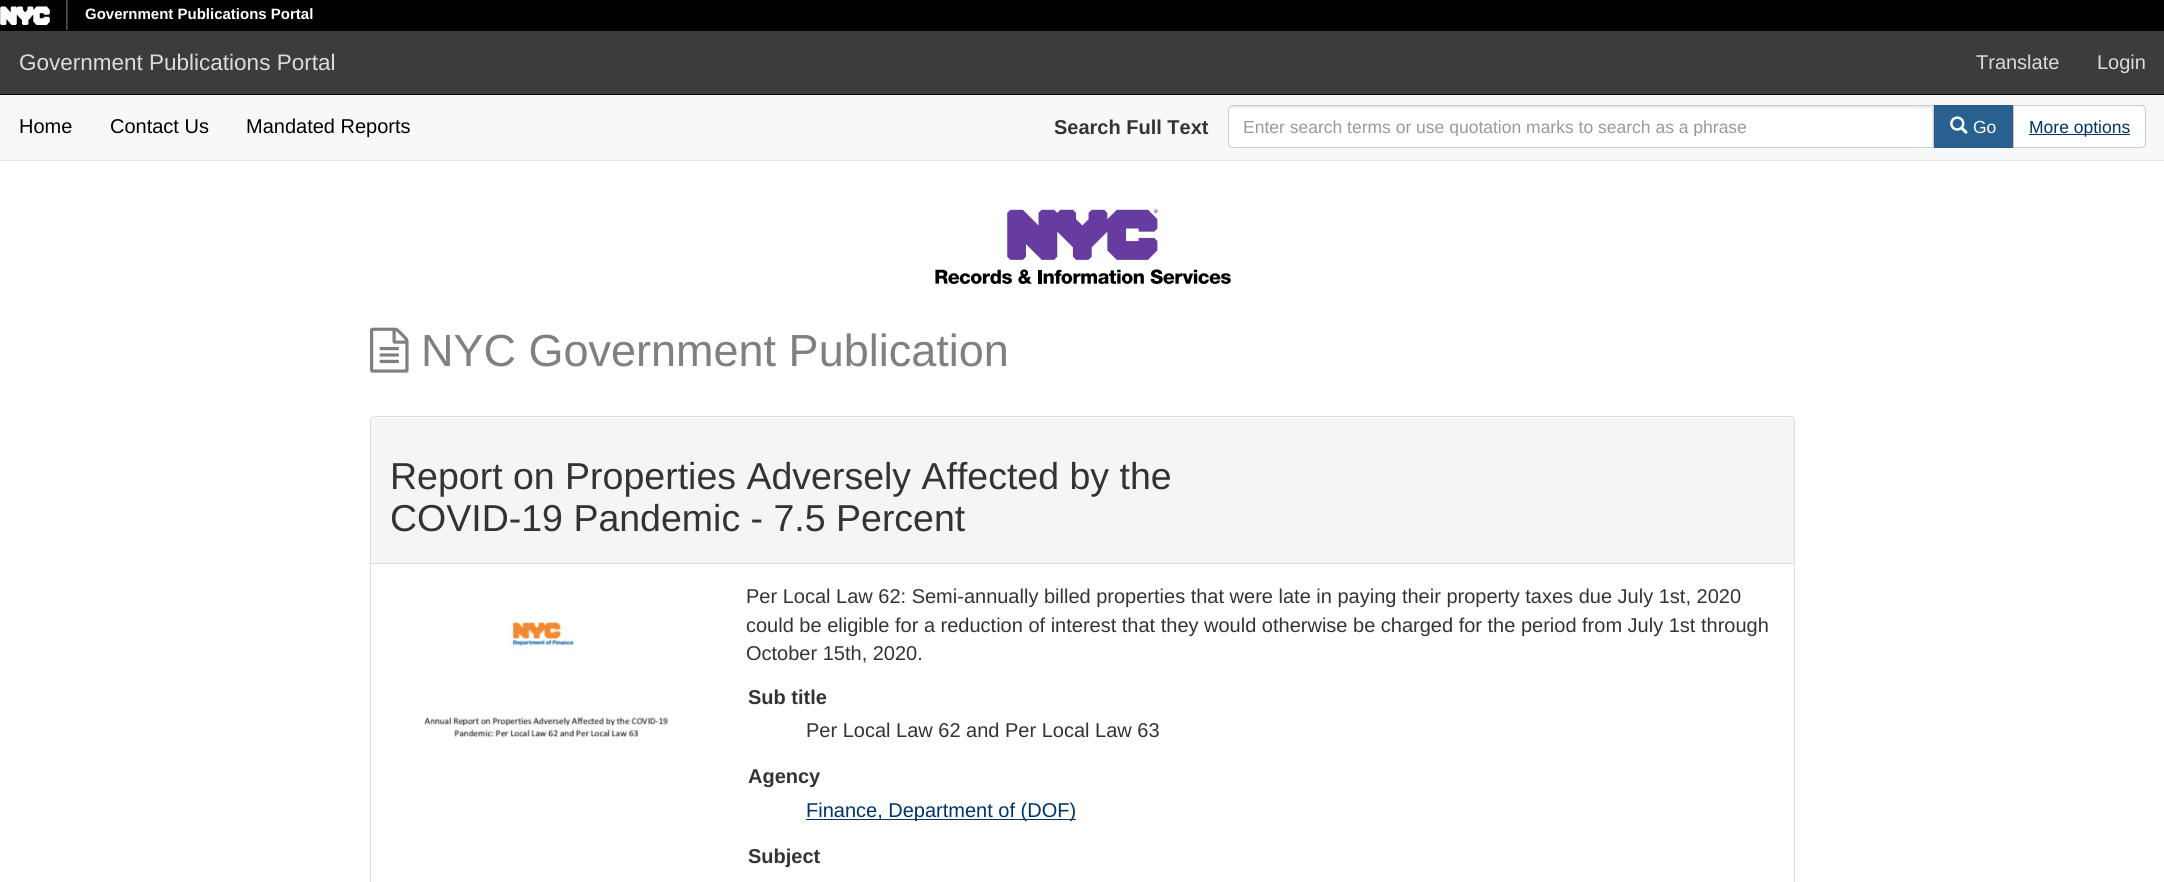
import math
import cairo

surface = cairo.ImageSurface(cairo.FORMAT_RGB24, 2164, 882)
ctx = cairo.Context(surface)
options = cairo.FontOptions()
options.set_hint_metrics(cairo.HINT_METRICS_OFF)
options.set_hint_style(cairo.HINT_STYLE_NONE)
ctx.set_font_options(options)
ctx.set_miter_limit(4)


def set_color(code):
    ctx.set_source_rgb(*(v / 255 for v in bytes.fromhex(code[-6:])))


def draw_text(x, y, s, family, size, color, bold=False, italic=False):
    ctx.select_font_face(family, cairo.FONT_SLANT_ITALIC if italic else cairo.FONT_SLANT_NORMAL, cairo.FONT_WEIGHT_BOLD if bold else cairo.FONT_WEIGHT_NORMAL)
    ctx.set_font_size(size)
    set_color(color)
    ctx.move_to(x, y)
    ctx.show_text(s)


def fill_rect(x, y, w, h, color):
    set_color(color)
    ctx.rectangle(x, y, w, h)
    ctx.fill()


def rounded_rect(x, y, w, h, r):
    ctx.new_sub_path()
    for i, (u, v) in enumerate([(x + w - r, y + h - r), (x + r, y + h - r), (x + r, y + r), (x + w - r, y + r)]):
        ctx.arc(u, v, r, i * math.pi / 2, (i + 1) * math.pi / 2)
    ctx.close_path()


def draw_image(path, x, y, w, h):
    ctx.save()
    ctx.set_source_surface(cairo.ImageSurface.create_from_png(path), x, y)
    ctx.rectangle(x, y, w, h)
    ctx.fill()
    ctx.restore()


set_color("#ffffff")
ctx.paint()
fill_rect(0, 0, 2164, 31, "#000000")
draw_image("assets/img1.png", 0, 6, 50, 19)
draw_image("assets/img2.png", 66, 0, 2, 30)
draw_text(85, 19, "Government Publications Portal", "Liberation Sans", 15, "#ffffff", bold=True)
fill_rect(0, 31, 2164, 63, "#3c3c3c")
fill_rect(0, 94, 2164, 1, "#090909")
draw_text(19, 70, "Government Publications Portal", "Liberation Sans", 22.5, "#dcdcdc")
draw_text(1976, 69, "Translate", "Liberation Sans", 20, "#dcdcdc")
draw_text(2097, 69, "Login", "Liberation Sans", 20, "#dcdcdc")
fill_rect(0, 95, 2164, 65, "#f8f8f8")
fill_rect(0, 160, 2164, 1, "#e7e7e7")
draw_text(19, 133, "Home", "Liberation Sans", 20, "#000000")
draw_text(110, 133, "Contact Us", "Liberation Sans", 20, "#000000")
draw_text(246, 133, "Mandated Reports", "Liberation Sans", 20, "#000000")
draw_text(1054, 134, "Search Full Text", "Liberation Sans", 20, "#333333", bold=True)
set_color("#ffffff")
ctx.new_path()
ctx.move_to(1233, 105)
ctx.line_to(1934, 105)
ctx.line_to(1934, 148)
ctx.line_to(1233, 148)
ctx.curve_to(1230, 148, 1228, 146, 1228, 143)
ctx.line_to(1228, 110)
ctx.curve_to(1228, 107, 1230, 105, 1233, 105)
ctx.close_path()
ctx.fill()
set_color("#ececec")
ctx.new_path()
ctx.move_to(1232, 108)
ctx.line_to(1932, 108)
ctx.line_to(1932, 146)
ctx.line_to(1933, 146)
ctx.line_to(1933, 106)
ctx.line_to(1233, 106)
ctx.curve_to(1231, 106, 1229, 108, 1229, 110)
ctx.line_to(1229, 111)
ctx.curve_to(1229, 109, 1230, 108, 1232, 108)
ctx.close_path()
ctx.fill()
ctx.new_path()
ctx.move_to(1233, 105.5)
ctx.line_to(1933.5, 105.5)
ctx.line_to(1933.5, 147.5)
ctx.line_to(1233, 147.5)
ctx.curve_to(1230.5, 147.5, 1228.5, 145.5, 1228.5, 143)
ctx.line_to(1228.5, 110)
ctx.curve_to(1228.5, 107.5, 1230.5, 105.5, 1233, 105.5)
ctx.close_path()
set_color("#cccccc")
ctx.set_line_width(1)
ctx.stroke()
ctx.save()
ctx.rectangle(1244, 116, 674, 20)
ctx.clip()
draw_text(1243, 133, "Enter search terms or use quotation marks to search as a phrase", "Liberation Sans", 17.5, "#999999")
ctx.restore()
set_color("#286090")
ctx.rectangle(1934.5, 105.5, 78, 42)
ctx.fill_preserve()
set_color("#265b89")
ctx.stroke()
draw_image("assets/img3.png", 1950, 116, 18, 18)
draw_text(1973, 133, "Go", "Liberation Sans", 17.5, "#ffffff")
ctx.new_path()
ctx.move_to(2013.5, 105.5)
ctx.line_to(2141, 105.5)
ctx.curve_to(2143.5, 105.5, 2145.5, 107.5, 2145.5, 110)
ctx.line_to(2145.5, 143)
ctx.curve_to(2145.5, 145.5, 2143.5, 147.5, 2141, 147.5)
ctx.line_to(2013.5, 147.5)
ctx.close_path()
ctx.fill_preserve()
set_color("#cccccc")
ctx.stroke()
fill_rect(2029, 134, 101, 1, "#003366")
draw_text(2029, 133, "More options", "Liberation Sans", 17.5, "#003366")
draw_image("assets/img4.png", 935, 209, 296, 75)
draw_image("assets/img5.png", 370, 327, 39, 46)
draw_text(421, 366, "NYC Government Publication", "Liberation Sans", 45, "#808080")
rounded_rect(370.5, 416.5, 1424, 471, 4.5)
set_color("#dddddd")
ctx.stroke()
set_color("#f5f5f5")
ctx.new_path()
ctx.move_to(375, 418)
ctx.line_to(1790, 418)
ctx.curve_to(1792, 418, 1794, 420, 1794, 422)
ctx.line_to(1794, 564)
ctx.line_to(371, 564)
ctx.line_to(371, 422)
ctx.curve_to(371, 420, 373, 418, 375, 418)
ctx.close_path()
ctx.fill()
fill_rect(371, 563, 1423, 1, "#dddddd")
draw_text(390, 489, "Report on Properties Adversely Affected by the", "Liberation Sans", 37.5, "#333333")
draw_text(390, 531, "COVID-19 Pandemic - 7.5 Percent", "Liberation Sans", 37.5, "#333333")
draw_image("assets/img6.png", 424, 622, 244, 118)
draw_text(746, 603, "Per Local Law 62: Semi-annually billed properties that were late in paying their property taxes due July 1st, 2020", "Liberation Sans", 20, "#333333")
draw_text(746, 632, "could be eligible for a reduction of interest that they would otherwise be charged for the period from July 1st through", "Liberation Sans", 20, "#333333")
draw_text(746, 660, "October 15th, 2020.", "Liberation Sans", 20, "#333333")
draw_text(748, 704, "Sub title", "Liberation Sans", 20, "#333333", bold=True)
draw_text(806, 737, "Per Local Law 62 and Per Local Law 63", "Liberation Sans", 20, "#333333")
draw_text(748, 783, "Agency", "Liberation Sans", 20, "#333333", bold=True)
fill_rect(806, 819, 270, 1, "#003366")
draw_text(806, 817, "Finance, Department of (DOF)", "Liberation Sans", 20, "#003366")
draw_text(748, 863, "Subject", "Liberation Sans", 20, "#333333", bold=True)
surface.write_to_png("output.png")
